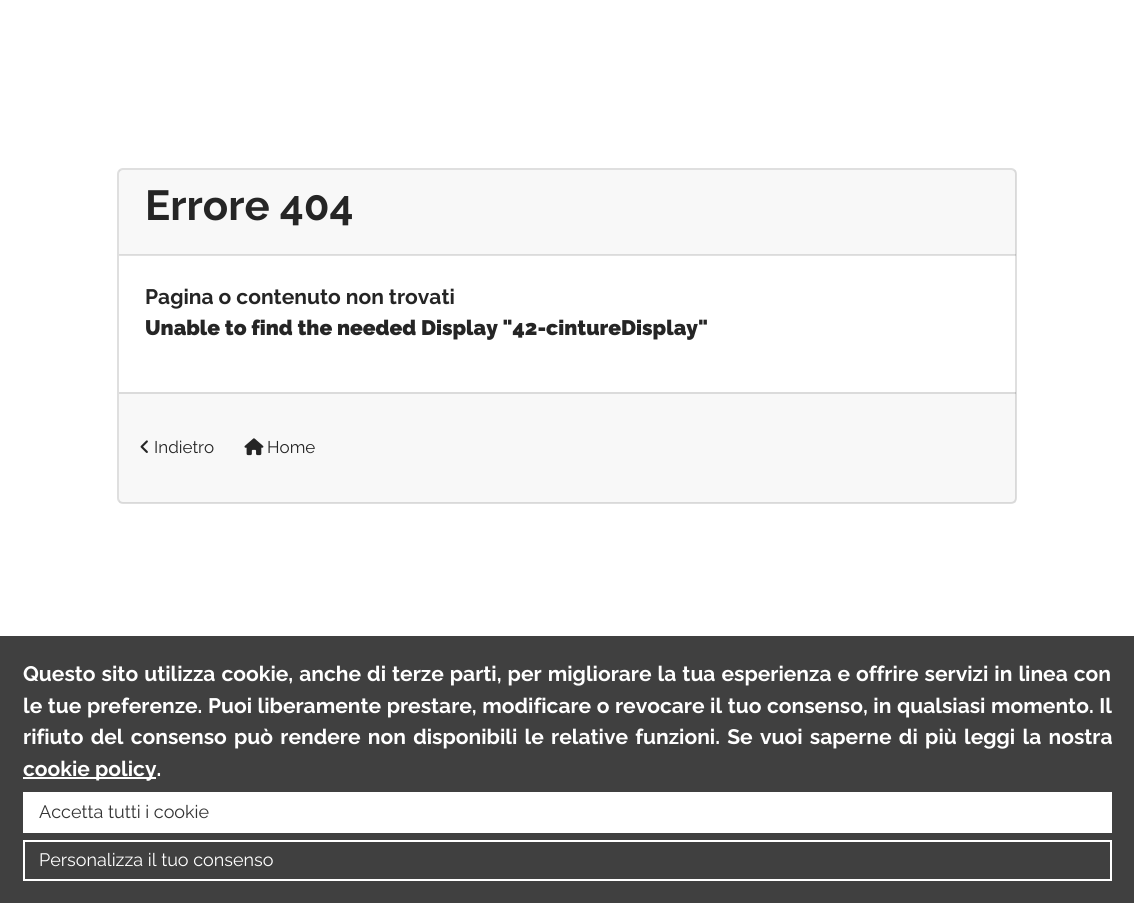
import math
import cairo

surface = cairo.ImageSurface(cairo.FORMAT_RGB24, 1134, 903)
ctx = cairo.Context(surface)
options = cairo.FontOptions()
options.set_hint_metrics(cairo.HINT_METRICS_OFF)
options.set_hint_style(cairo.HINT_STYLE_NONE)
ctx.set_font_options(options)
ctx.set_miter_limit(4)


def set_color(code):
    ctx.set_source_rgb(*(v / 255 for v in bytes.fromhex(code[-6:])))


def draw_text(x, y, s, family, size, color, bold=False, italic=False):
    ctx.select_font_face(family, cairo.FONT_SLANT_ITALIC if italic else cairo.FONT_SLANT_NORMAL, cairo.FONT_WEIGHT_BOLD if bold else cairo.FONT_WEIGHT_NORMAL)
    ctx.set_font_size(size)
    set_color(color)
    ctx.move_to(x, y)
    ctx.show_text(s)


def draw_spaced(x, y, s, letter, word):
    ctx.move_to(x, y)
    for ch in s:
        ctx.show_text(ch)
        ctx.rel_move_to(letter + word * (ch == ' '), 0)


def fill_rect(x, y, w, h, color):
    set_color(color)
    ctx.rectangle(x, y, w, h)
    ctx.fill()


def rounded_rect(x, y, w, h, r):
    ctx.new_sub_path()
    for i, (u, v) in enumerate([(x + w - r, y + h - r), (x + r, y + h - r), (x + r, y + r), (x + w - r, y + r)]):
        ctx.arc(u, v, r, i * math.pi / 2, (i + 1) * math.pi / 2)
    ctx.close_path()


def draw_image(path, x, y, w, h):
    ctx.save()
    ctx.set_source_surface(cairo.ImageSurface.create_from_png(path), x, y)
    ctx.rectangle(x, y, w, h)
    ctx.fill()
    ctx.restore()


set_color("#ffffff")
ctx.paint()
rounded_rect(118, 169, 898, 334, 5)
set_color("#dfdfdf")
ctx.stroke()
ctx.set_source_rgba(0, 0, 0, 0.03)
ctx.rectangle(119, 170, 897, 85)
ctx.fill()
ctx.set_source_rgba(0, 0, 0, 0.12)
ctx.rectangle(119, 254, 897, 2)
ctx.fill()
draw_text(145, 220, "Errore 404", "Raleway", 42, "#252525", bold=True)
draw_text(145, 304, "Pagina o contenuto non trovati", "Raleway", 21, "#252525", bold=True)
draw_text(145, 335, "Unable to find the needed Display \"42-cintureDisplay\"", "Raleway Black", 21, "#252525")
ctx.set_source_rgba(0, 0, 0, 0.03)
ctx.rectangle(119, 392, 897, 111)
ctx.fill()
ctx.set_source_rgba(0, 0, 0, 0.12)
ctx.rectangle(119, 392, 897, 2)
ctx.fill()
draw_image("assets/img1.png", 140, 440, 8, 13)
draw_text(154, 453, "Indietro", "Raleway", 17, "#252525")
draw_image("assets/img2.png", 244, 438, 20, 18)
draw_text(267, 453, "Home", "Raleway", 17, "#252525")
fill_rect(0, 636, 1134, 267, "#404040")
ctx.select_font_face("Raleway", cairo.FONT_SLANT_NORMAL, cairo.FONT_WEIGHT_BOLD)
ctx.set_font_size(21)
set_color("#ffffff")
draw_spaced(23, 681, "Questo sito utilizza cookie, anche di terze parti, per migliorare la tua esperienza e offrire servizi in linea con", 0, 1)
draw_spaced(23, 713, "le tue preferenze. Puoi liberamente prestare, modificare o revocare il tuo consenso, in qualsiasi momento. Il", 0, 0.5)
draw_spaced(23, 744, "rifiuto del consenso può rendere non disponibili le relative funzioni. Se vuoi saperne di più leggi la nostra", 0, 2.25)
fill_rect(23, 777, 133, 2, "#ffffff")
draw_text(23, 776, "cookie policy.", "Raleway", 21, "#ffffff", bold=True)
fill_rect(23, 792, 1089, 41, "#ffffff")
draw_text(39, 818, "Accetta tutti i cookie", "Raleway", 18, "#333333")
ctx.rectangle(24, 841, 1087, 39)
set_color("#ffffff")
ctx.stroke()
draw_text(39, 866, "Personalizza il tuo consenso", "Raleway", 18, "#ffffff")
surface.write_to_png("output.png")
